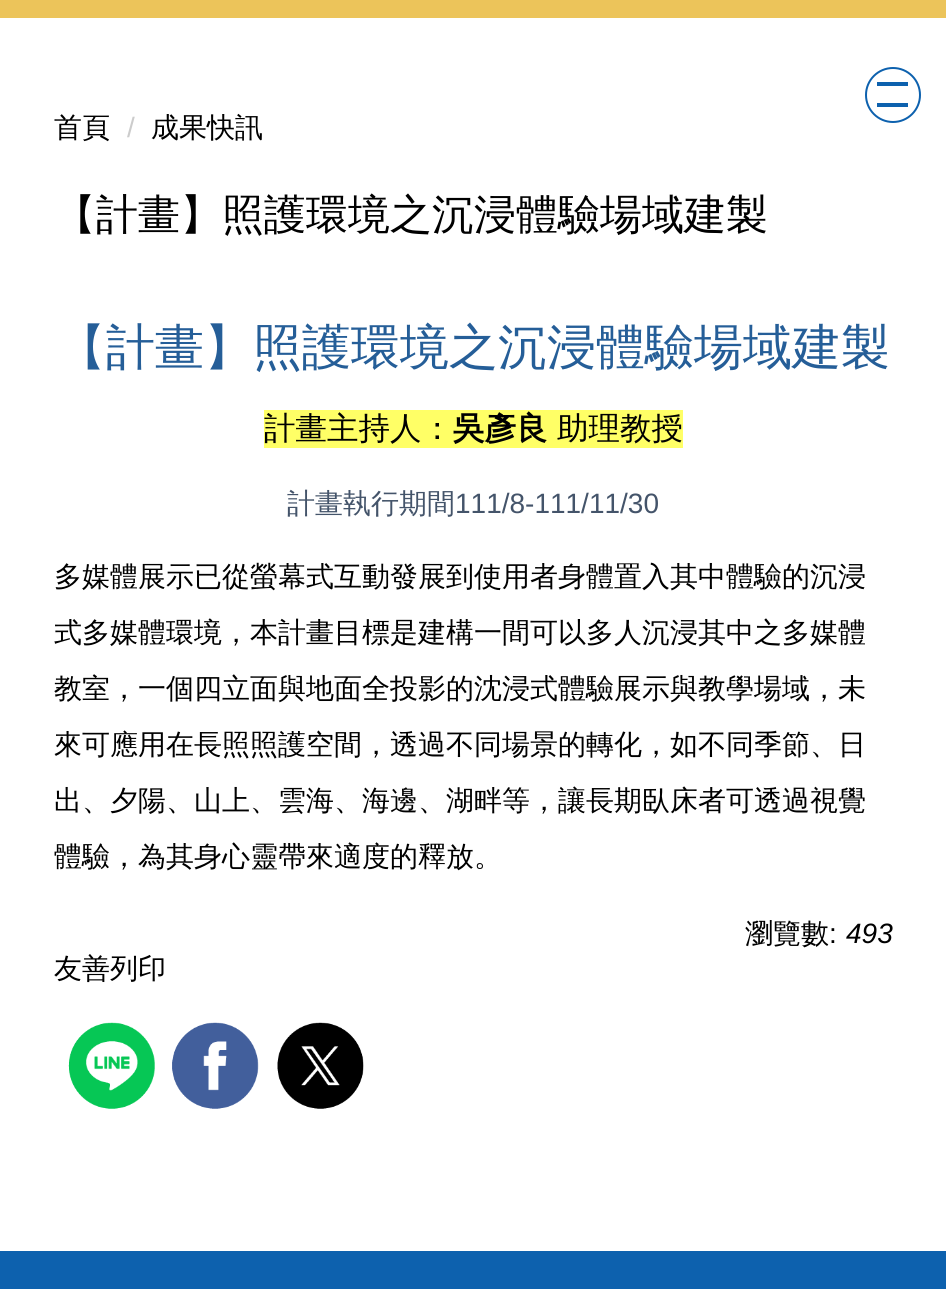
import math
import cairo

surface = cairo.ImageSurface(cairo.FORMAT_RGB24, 946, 1289)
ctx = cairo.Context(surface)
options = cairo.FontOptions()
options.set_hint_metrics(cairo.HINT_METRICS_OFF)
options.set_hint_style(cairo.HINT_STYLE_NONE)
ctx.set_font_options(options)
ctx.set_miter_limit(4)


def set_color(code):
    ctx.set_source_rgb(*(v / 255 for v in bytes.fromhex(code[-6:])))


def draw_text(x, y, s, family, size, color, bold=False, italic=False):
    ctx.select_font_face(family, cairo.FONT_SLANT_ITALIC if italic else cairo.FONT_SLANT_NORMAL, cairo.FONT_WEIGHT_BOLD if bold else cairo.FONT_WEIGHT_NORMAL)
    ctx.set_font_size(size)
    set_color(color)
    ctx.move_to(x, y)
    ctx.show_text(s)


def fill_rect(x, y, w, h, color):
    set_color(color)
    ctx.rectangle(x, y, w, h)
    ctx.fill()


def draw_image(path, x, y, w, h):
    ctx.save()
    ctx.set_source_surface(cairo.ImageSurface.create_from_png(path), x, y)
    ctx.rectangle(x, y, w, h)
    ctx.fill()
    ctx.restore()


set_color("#ffffff")
ctx.paint()
fill_rect(0, 0, 946, 18, "#ecc45a")
ctx.arc(893, 95, 27, 0, 2 * math.pi)
set_color("#0d61ae")
ctx.stroke()
fill_rect(877, 82, 31, 4, "#0d61ae")
fill_rect(877, 103, 31, 4, "#0d61ae")
draw_text(54, 137, "首頁", "WenQuanYi Zen Hei Medium", 28, "#000000")
draw_text(127, 137, "/", "Liberation Sans", 28, "#cccccc")
draw_text(151, 137, "成果快訊", "WenQuanYi Zen Hei Medium", 28, "#000000")
draw_text(54, 229, "【計畫】照護環境之沉浸體驗場域建製", "WenQuanYi Zen Hei Medium", 42, "#000000")
draw_text(57, 364, "【計畫】照護環境之沉浸體驗場域建製", "WenQuanYi Zen Hei Medium", 49, "#255e98")
fill_rect(264, 410, 419, 38, "#ffff66")
draw_text(264, 439, "計畫主持人：", "WenQuanYi Zen Hei Medium", 31.5, "#000000")
draw_text(453, 439, "吳彥良", "WenQuanYi Zen Hei", 31.5, "#000000", bold=True)
draw_text(557, 439, "助理教授", "WenQuanYi Zen Hei Medium", 31.5, "#000000")
draw_text(287, 513, "計畫執行期間", "WenQuanYi Zen Hei Medium", 28, "#44546a")
draw_text(455, 513, "111/8-111/11/30", "Liberation Sans", 28, "#44546a")
draw_text(54, 586, "多媒體展示已從螢幕式互動發展到使用者身體置入其中體驗的沉浸", "WenQuanYi Zen Hei Medium", 28, "#000000")
draw_text(54, 642, "式多媒體環境，本計畫目標是建構一間可以多人沉浸其中之多媒體", "WenQuanYi Zen Hei Medium", 28, "#000000")
draw_text(54, 698, "教室，一個四立面與地面全投影的沈浸式體驗展示與教學場域，未", "WenQuanYi Zen Hei Medium", 28, "#000000")
draw_text(54, 754, "來可應用在長照照護空間，透過不同場景的轉化，如不同季節、日", "WenQuanYi Zen Hei Medium", 28, "#000000")
draw_text(54, 810, "出、夕陽、山上、雲海、海邊、湖畔等，讓長期臥床者可透過視覺", "WenQuanYi Zen Hei Medium", 28, "#000000")
draw_text(54, 866, "體驗，為其身心靈帶來適度的釋放。", "WenQuanYi Zen Hei Medium", 28, "#000000")
draw_text(745, 943, "瀏覽數", "WenQuanYi Zen Hei Medium", 28, "#000000")
draw_text(829, 943, ":", "Liberation Sans", 28, "#000000")
draw_text(846, 943, "493", "Liberation Sans", 28, "#000000", italic=True)
draw_text(54, 978, "友善列印", "WenQuanYi Zen Hei Medium", 28, "#000000")
draw_image("assets/img1.png", 68, 1022, 87, 87)
draw_image("assets/img2.png", 172, 1022, 87, 87)
draw_image("assets/img3.png", 277, 1022, 87, 87)
fill_rect(0, 1251, 946, 38, "#0d61ae")
surface.write_to_png("output.png")
